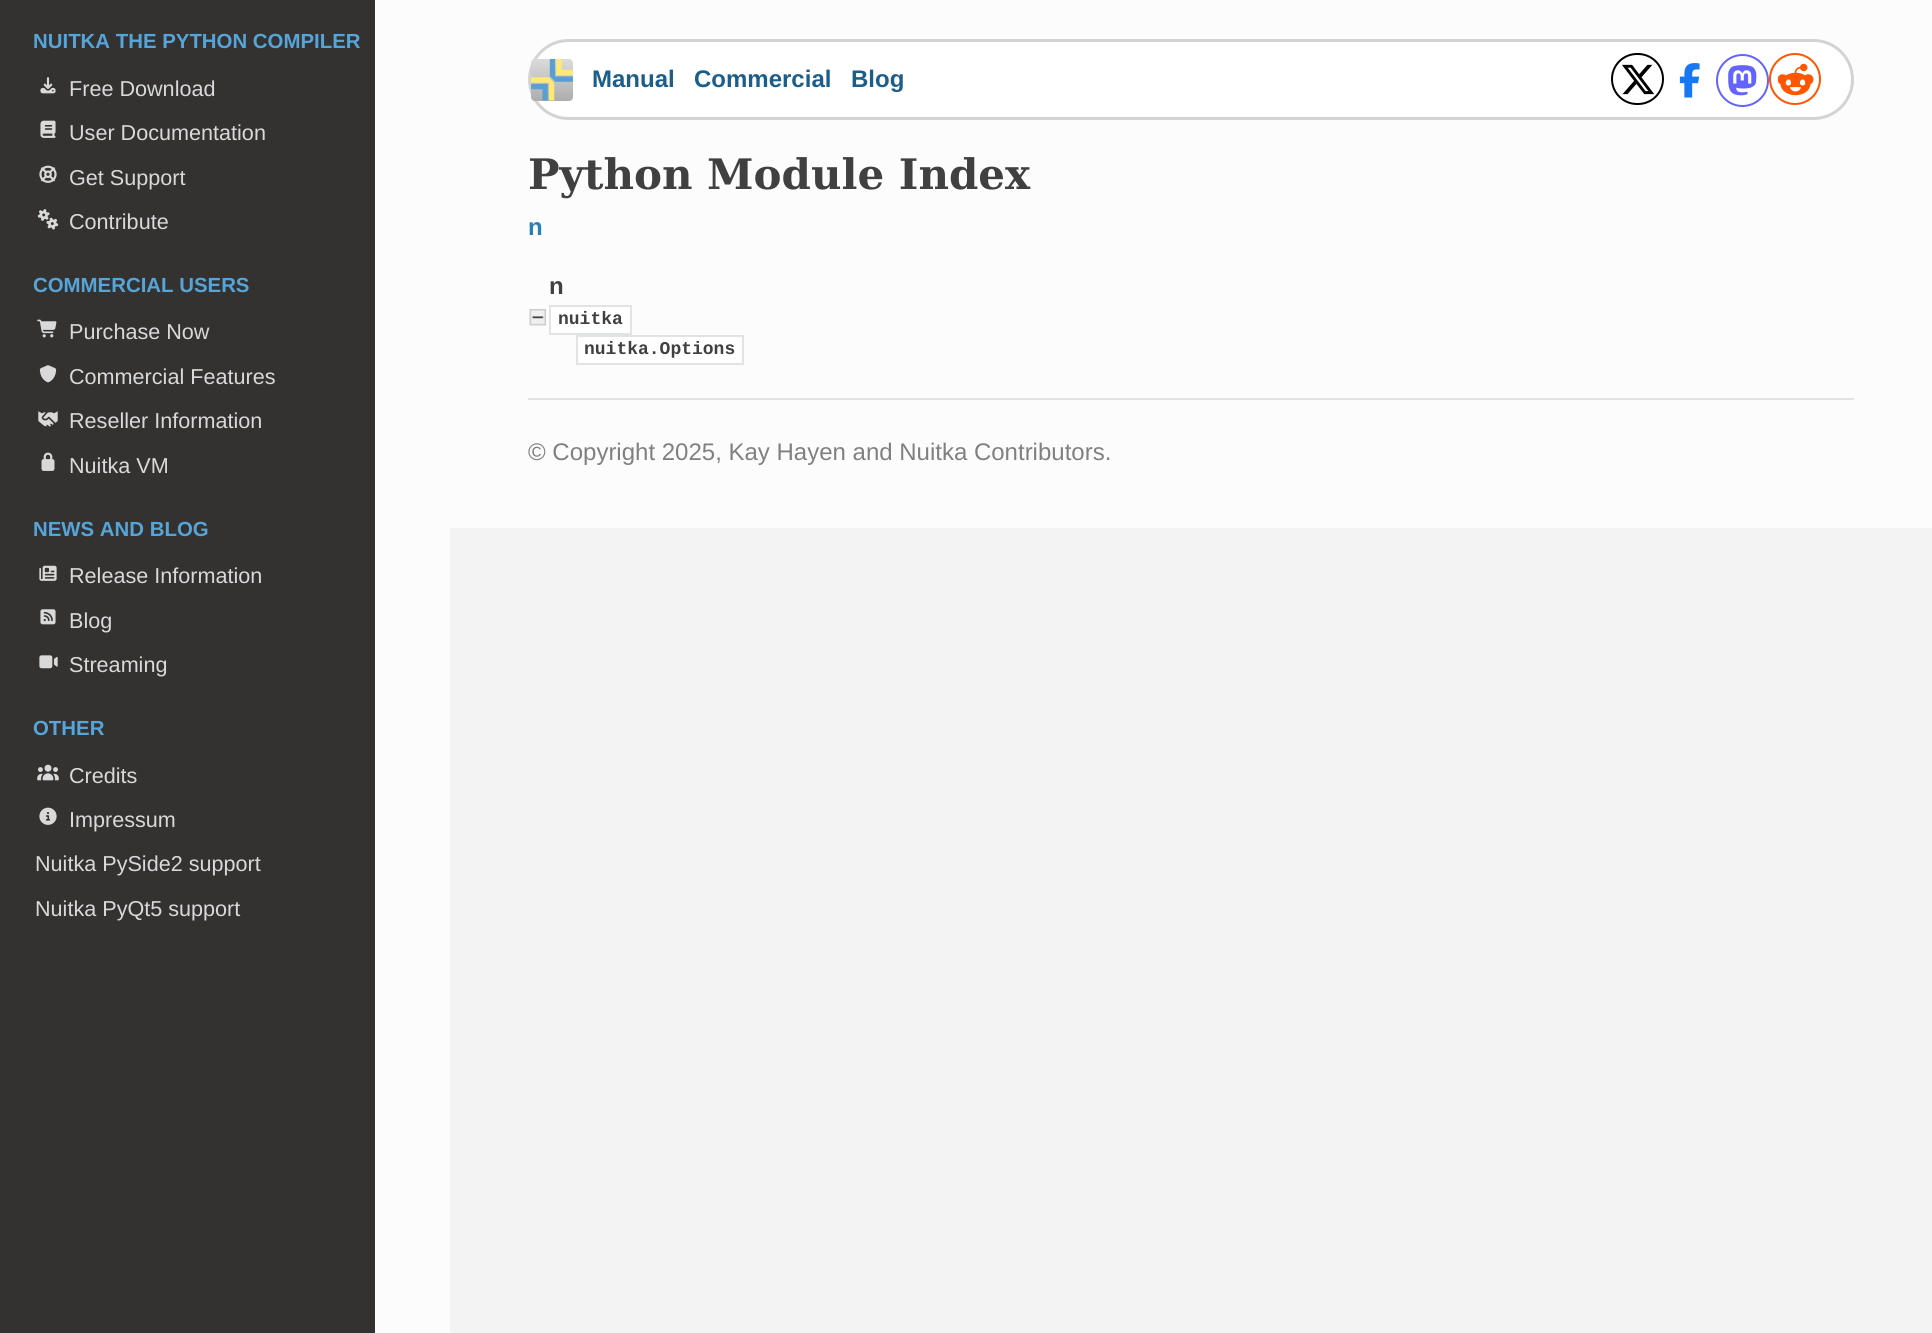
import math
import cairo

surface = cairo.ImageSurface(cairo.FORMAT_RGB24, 1932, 1333)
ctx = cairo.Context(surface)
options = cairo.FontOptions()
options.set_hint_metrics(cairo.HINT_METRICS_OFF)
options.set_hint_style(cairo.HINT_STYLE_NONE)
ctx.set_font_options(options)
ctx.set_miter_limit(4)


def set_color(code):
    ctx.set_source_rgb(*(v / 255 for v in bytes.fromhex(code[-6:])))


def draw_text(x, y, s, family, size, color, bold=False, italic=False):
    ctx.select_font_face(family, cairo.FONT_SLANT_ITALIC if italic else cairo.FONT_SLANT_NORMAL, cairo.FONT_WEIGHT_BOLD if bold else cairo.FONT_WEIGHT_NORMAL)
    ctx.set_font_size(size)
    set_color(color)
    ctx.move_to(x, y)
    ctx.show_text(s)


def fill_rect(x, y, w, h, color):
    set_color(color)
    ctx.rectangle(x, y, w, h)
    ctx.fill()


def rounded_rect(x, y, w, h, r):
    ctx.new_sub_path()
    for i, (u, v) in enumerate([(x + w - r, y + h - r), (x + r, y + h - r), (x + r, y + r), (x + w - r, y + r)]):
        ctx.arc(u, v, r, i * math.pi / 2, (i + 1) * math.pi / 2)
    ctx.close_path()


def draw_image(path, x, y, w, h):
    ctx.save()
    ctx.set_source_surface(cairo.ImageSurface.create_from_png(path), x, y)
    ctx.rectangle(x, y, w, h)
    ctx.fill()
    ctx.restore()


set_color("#fcfcfc")
ctx.paint()
fill_rect(0, 0, 375, 1333, "#343131")
draw_text(33, 48, "NUITKA THE PYTHON COMPILER", "Liberation Sans", 20.4, "#55a5d9", bold=True)
draw_image("assets/img1.png", 40, 77, 16, 17)
draw_text(69, 96, "Free Download", "Liberation Sans", 21.6, "#d9d9d9")
draw_image("assets/img2.png", 40, 120, 16, 18)
draw_text(69, 140, "User Documentation", "Liberation Sans", 21.6, "#d9d9d9")
draw_image("assets/img3.png", 39, 165, 18, 18)
draw_text(69, 185, "Get Support", "Liberation Sans", 21.6, "#d9d9d9")
draw_image("assets/img4.png", 37, 209, 22, 21)
draw_text(69, 229, "Contribute", "Liberation Sans", 21.6, "#d9d9d9")
draw_text(33, 292, "COMMERCIAL USERS", "Liberation Sans", 20.4, "#55a5d9", bold=True)
draw_image("assets/img5.png", 37, 319, 20, 19)
draw_text(69, 339, "Purchase Now", "Liberation Sans", 21.6, "#d9d9d9")
draw_image("assets/img6.png", 39, 365, 18, 18)
draw_text(69, 384, "Commercial Features", "Liberation Sans", 21.6, "#d9d9d9")
draw_image("assets/img7.png", 38, 411, 20, 16)
draw_text(69, 428, "Reseller Information", "Liberation Sans", 21.6, "#d9d9d9")
draw_image("assets/img8.png", 41, 452, 14, 19)
draw_text(69, 473, "Nuitka VM", "Liberation Sans", 21.6, "#d9d9d9")
draw_text(33, 536, "NEWS AND BLOG", "Liberation Sans", 20.4, "#55a5d9", bold=True)
draw_image("assets/img9.png", 39, 565, 18, 16)
draw_text(69, 583, "Release Information", "Liberation Sans", 21.6, "#d9d9d9")
draw_image("assets/img10.png", 40, 609, 16, 16)
draw_text(69, 628, "Blog", "Liberation Sans", 21.6, "#d9d9d9")
draw_image("assets/img11.png", 39, 655, 19, 14)
draw_text(69, 672, "Streaming", "Liberation Sans", 21.6, "#d9d9d9")
draw_text(33, 735, "OTHER", "Liberation Sans", 20.4, "#55a5d9", bold=True)
draw_image("assets/img12.png", 37, 764, 22, 17)
draw_text(69, 783, "Credits", "Liberation Sans", 21.6, "#d9d9d9")
draw_image("assets/img13.png", 39, 807, 18, 18)
draw_text(69, 827, "Impressum", "Liberation Sans", 21.6, "#d9d9d9")
draw_text(35, 871, "Nuitka PySide2 support", "Liberation Sans", 21.6, "#d9d9d9")
draw_text(35, 916, "Nuitka PyQt5 support", "Liberation Sans", 21.6, "#d9d9d9")
fill_rect(450, 528, 1482, 805, "#f3f3f3")
set_color("#ffffff")
rounded_rect(529.5, 40.5, 1323, 78, 39)
ctx.fill_preserve()
set_color("#d3d3d3")
ctx.set_line_width(3)
ctx.stroke()
draw_image("assets/img14.png", 531, 59, 42, 42)
draw_text(592, 87, "Manual", "Liberation Sans", 24, "#1c5e89", bold=True)
draw_text(694, 87, "Commercial", "Liberation Sans", 24, "#1c5e89", bold=True)
draw_text(851, 87, "Blog", "Liberation Sans", 24, "#1c5e89", bold=True)
rounded_rect(1612, 54, 51, 50, 25)
set_color("#000000")
ctx.set_line_width(2)
ctx.stroke()
draw_image("assets/img15.png", 1622, 64, 33, 31)
draw_image("assets/img16.png", 1679, 63, 21, 35)
ctx.arc(1742.5, 80.5, 25.5, 0, 2 * math.pi)
set_color("#6364ff")
ctx.stroke()
draw_image("assets/img17.png", 1728, 65, 29, 31)
ctx.arc(1795, 79, 25, 0, 2 * math.pi)
set_color("#ff5700")
ctx.stroke()
draw_image("assets/img18.png", 1778, 63, 36, 33)
draw_text(528, 189, "Python Module Index", "DejaVu Serif", 42, "#404040", bold=True)
draw_text(528, 235, "n", "Liberation Sans", 24, "#2980b9", bold=True)
draw_text(549, 294, "n", "Liberation Sans", 24, "#404040", bold=True)
draw_image("assets/img19.png", 529, 309, 17, 17)
set_color("#ffffff")
ctx.rectangle(550, 306, 81, 28)
ctx.fill_preserve()
set_color("#e1e4e5")
ctx.stroke()
draw_text(558, 324, "nuitka", "Liberation Mono", 18, "#404040", bold=True)
set_color("#ffffff")
ctx.rectangle(577, 336, 166, 28)
ctx.fill_preserve()
set_color("#e1e4e5")
ctx.stroke()
draw_text(584, 354, "nuitka.Options", "Liberation Mono", 18, "#404040", bold=True)
fill_rect(528, 398, 1326, 2, "#e1e4e5")
draw_text(528, 460, "© Copyright 2025, Kay Hayen and Nuitka Contributors.", "Liberation Sans", 24, "#808080")
surface.write_to_png("output.png")
